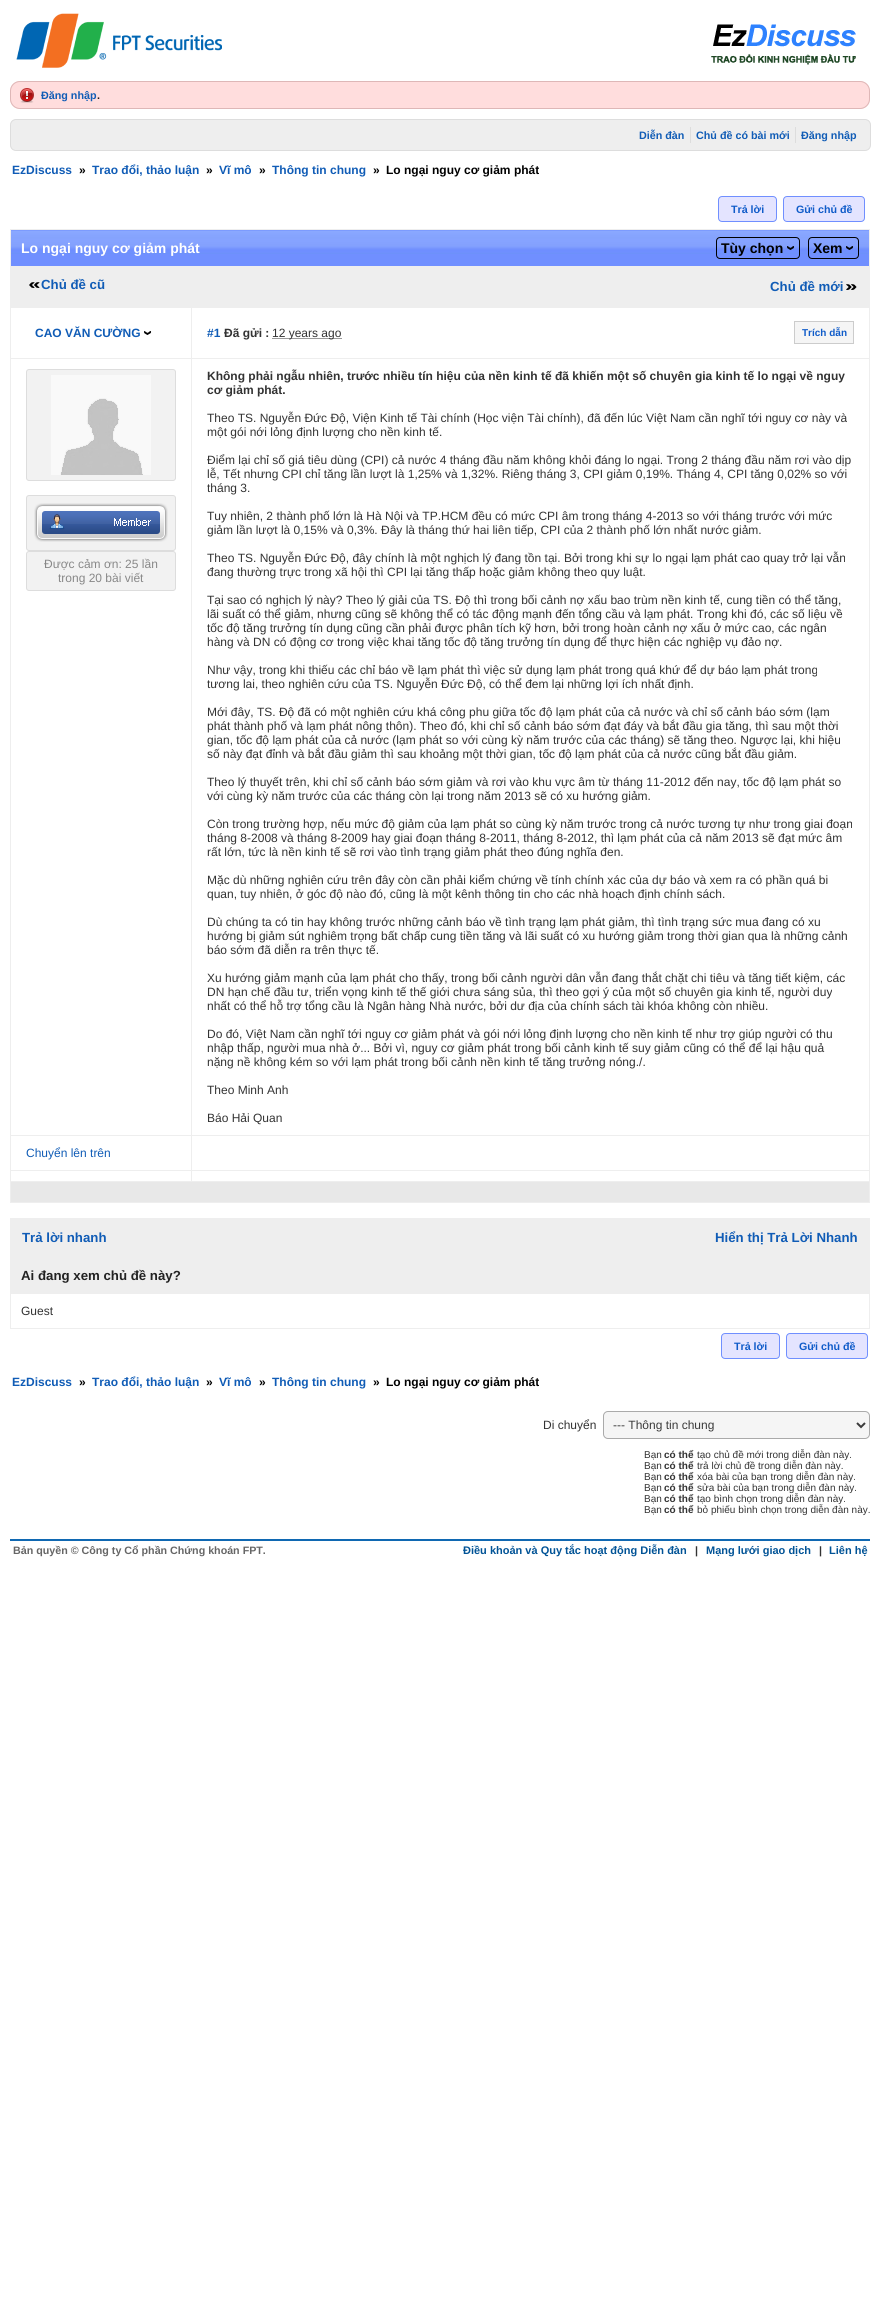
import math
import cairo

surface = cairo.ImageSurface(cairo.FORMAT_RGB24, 880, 2304)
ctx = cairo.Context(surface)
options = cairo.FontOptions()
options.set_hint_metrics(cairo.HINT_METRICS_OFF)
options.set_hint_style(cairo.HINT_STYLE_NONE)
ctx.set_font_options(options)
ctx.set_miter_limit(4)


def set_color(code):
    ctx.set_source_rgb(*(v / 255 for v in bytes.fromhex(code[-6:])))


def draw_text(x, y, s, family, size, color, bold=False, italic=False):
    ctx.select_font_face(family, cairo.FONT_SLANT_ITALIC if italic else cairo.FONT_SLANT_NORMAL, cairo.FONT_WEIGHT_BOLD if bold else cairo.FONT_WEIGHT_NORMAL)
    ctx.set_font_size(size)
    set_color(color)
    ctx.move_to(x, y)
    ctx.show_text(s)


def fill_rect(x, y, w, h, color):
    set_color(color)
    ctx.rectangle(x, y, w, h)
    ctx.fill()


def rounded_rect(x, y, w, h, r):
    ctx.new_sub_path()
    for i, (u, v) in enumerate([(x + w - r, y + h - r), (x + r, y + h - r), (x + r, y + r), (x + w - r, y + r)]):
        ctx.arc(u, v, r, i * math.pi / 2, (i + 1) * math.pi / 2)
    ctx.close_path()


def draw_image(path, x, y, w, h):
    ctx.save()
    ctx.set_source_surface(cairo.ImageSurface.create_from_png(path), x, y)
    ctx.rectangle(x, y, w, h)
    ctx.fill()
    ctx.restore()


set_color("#ffffff")
ctx.paint()
draw_image("assets/img1.png", 16, 13, 206, 55)
draw_image("assets/img2.png", 711, 24, 145, 41)
set_color("#ffdddd")
rounded_rect(10, 81, 860, 28, 10)
ctx.fill()
draw_image("assets/img3.png", 20, 88, 14, 15)
rounded_rect(10.5, 81.5, 859, 27, 9.5)
set_color("#deb7b7")
ctx.set_line_width(1)
ctx.stroke()
draw_text(41, 99, "Đăng nhập", "Liberation Sans", 10.75, "#105cb6", bold=True)
draw_text(97, 99, ".", "Liberation Sans", 10.75, "#281b1b", bold=True)
set_color("#eeeeee")
rounded_rect(10.5, 119.5, 860, 31, 5.5)
ctx.fill_preserve()
set_color("#dddddd")
ctx.stroke()
draw_text(639, 139, "Diễn đàn", "Liberation Sans", 10.75, "#105cb6", bold=True)
draw_text(696, 139, "Chủ đề có bài mới", "Liberation Sans", 10.75, "#105cb6", bold=True)
fill_rect(690, 127, 1, 16, "#dddddd")
draw_text(801, 139, "Đăng nhập", "Liberation Sans", 10.75, "#105cb6", bold=True)
fill_rect(795, 127, 1, 16, "#dddddd")
draw_text(12, 174, "EzDiscuss", "Liberation Sans", 12, "#105cb6", bold=True)
draw_text(79, 174, "»", "Liberation Sans", 12, "#000000", bold=True)
draw_text(92, 174, "Trao đổi, thảo luận", "Liberation Sans", 12, "#105cb6", bold=True)
draw_text(206, 174, "»", "Liberation Sans", 12, "#000000", bold=True)
draw_text(219, 174, "Vĩ mô", "Liberation Sans", 12, "#105cb6", bold=True)
draw_text(259, 174, "»", "Liberation Sans", 12, "#000000", bold=True)
draw_text(272, 174, "Thông tin chung", "Liberation Sans", 12, "#105cb6", bold=True)
draw_text(373, 174, "»", "Liberation Sans", 12, "#000000", bold=True)
draw_text(386, 174, "Lo ngại nguy cơ giảm phát", "Liberation Sans", 12, "#000000", bold=True)
set_color("#e4e4ff")
rounded_rect(718.5, 196.5, 58, 25, 3.5)
ctx.fill_preserve()
set_color("#708fff")
ctx.stroke()
draw_text(731, 213, "Trả lời", "Liberation Sans", 10.7, "#105cc9", bold=True)
set_color("#e4e4ff")
rounded_rect(783.5, 196.5, 81, 25, 3.5)
ctx.fill_preserve()
set_color("#708fff")
ctx.stroke()
draw_text(796, 213, "Gửi chủ đề", "Liberation Sans", 10.7, "#105cc9", bold=True)
fill_rect(11, 254, 858, 12, "#708fff")
draw_image("assets/img4.png", 11, 230, 858, 24)
fill_rect(10, 229, 860, 1, "#eeeeee")
fill_rect(10, 266, 860, 1, "#eeeeee")
fill_rect(869, 229, 1, 38, "#eeeeee")
fill_rect(10, 306, 860, 1, "#eeeeee")
fill_rect(10, 266, 1, 41, "#eeeeee")
fill_rect(10, 229, 1, 38, "#eeeeee")
draw_text(21, 253, "Lo ngại nguy cơ giảm phát", "Liberation Sans", 14, "#ffffff", bold=True)
draw_image("assets/img5.png", 787, 246, 8, 4)
rounded_rect(716.5, 237.5, 83, 21, 3.5)
set_color("#000000")
ctx.stroke()
draw_text(721, 253, "Tùy chọn", "Liberation Sans", 14, "#000000", bold=True)
draw_image("assets/img5.png", 846, 246, 8, 4)
rounded_rect(808.5, 237.5, 50, 21, 3.5)
ctx.stroke()
draw_text(813, 253, "Xem", "Liberation Sans", 14, "#000000", bold=True)
fill_rect(11, 267, 859, 39, "#eeeeee")
draw_image("assets/img6.png", 29, 282, 11, 6)
draw_text(41, 289, "Chủ đề cũ", "Liberation Sans", 13.25, "#105cb6", bold=True)
draw_image("assets/img7.png", 846, 284, 11, 6)
draw_text(770, 291, "Chủ đề mới", "Liberation Sans", 13.25, "#105cb6", bold=True)
fill_rect(191, 307, 679, 1, "#eeeeee")
fill_rect(191, 358, 679, 1, "#eeeeee")
fill_rect(191, 1135, 679, 1, "#eeeeee")
fill_rect(191, 1170, 679, 1, "#eeeeee")
fill_rect(10, 1181, 860, 1, "#eeeeee")
fill_rect(191, 1170, 1, 12, "#eeeeee")
fill_rect(10, 1170, 182, 1, "#eeeeee")
fill_rect(191, 1135, 1, 36, "#eeeeee")
fill_rect(10, 1135, 182, 1, "#eeeeee")
fill_rect(191, 358, 1, 778, "#eeeeee")
fill_rect(10, 358, 182, 1, "#eeeeee")
fill_rect(191, 307, 1, 52, "#eeeeee")
fill_rect(10, 307, 182, 1, "#eeeeee")
fill_rect(869, 1181, 1, 22, "#eeeeee")
fill_rect(10, 1202, 860, 1, "#eeeeee")
fill_rect(10, 1181, 1, 22, "#eeeeee")
fill_rect(10, 1170, 1, 12, "#eeeeee")
fill_rect(10, 1135, 1, 36, "#eeeeee")
fill_rect(10, 358, 1, 778, "#eeeeee")
fill_rect(10, 307, 1, 52, "#eeeeee")
draw_text(35, 337, "CAO VĂN CƯỜNG", "Liberation Sans", 12, "#105cb6", bold=True)
draw_image("assets/img8.png", 144, 331, 8, 4)
fill_rect(869, 1170, 1, 12, "#eeeeee")
fill_rect(869, 1135, 1, 36, "#eeeeee")
fill_rect(869, 358, 1, 778, "#eeeeee")
fill_rect(869, 307, 1, 52, "#eeeeee")
draw_text(207, 337, "#1", "Liberation Sans", 12, "#105cb6", bold=True)
draw_text(224, 337, "Đã gửi :", "Liberation Sans", 12, "#333333", bold=True)
ctx.new_path()
ctx.move_to(272.5, 338.5)
ctx.line_to(342, 338.5)
ctx.set_dash([1, 1])
ctx.stroke()
draw_text(272, 337, "12 years ago", "Liberation Sans", 12, "#333333")
set_color("#f5f5f5")
ctx.rectangle(794.5, 321.5, 59, 22)
ctx.fill_preserve()
set_color("#cccccc")
ctx.set_dash([])
ctx.stroke()
draw_text(802, 336, "Trích dẫn", "Liberation Sans", 10, "#105cc9", bold=True)
set_color("#f2f2f2")
rounded_rect(26.5, 369.5, 149, 111, 2.5)
ctx.fill_preserve()
set_color("#dddddd")
ctx.stroke()
draw_image("assets/img9.png", 51, 375, 100, 100)
set_color("#f2f2f2")
rounded_rect(26.5, 495.5, 149, 55, 2.5)
ctx.fill_preserve()
set_color("#dddddd")
ctx.stroke()
draw_image("assets/img10.png", 34, 503, 134, 39)
set_color("#f2f2f2")
rounded_rect(26.5, 551.5, 149, 39, 2.5)
ctx.fill_preserve()
set_color("#dddddd")
ctx.stroke()
draw_text(44, 568, "Được cảm ơn: 25 lần", "Liberation Sans", 12, "#888888")
draw_text(58, 582, "trong 20 bài viết", "Liberation Sans", 12, "#888888")
draw_text(207, 380, "Không phải ngẫu nhiên, trước nhiều tín hiệu của nền kinh tế đã khiến một số chuyên gia kinh tế lo ngại về nguy", "Liberation Sans", 12, "#333333", bold=True)
draw_text(207, 394, "cơ giảm phát.", "Liberation Sans", 12, "#333333", bold=True)
draw_text(207, 422, "Theo TS. Nguyễn Đức Độ, Viện Kinh tế Tài chính (Học viện Tài chính), đã đến lúc Việt Nam cần nghĩ tới nguy cơ này và", "Liberation Sans", 12, "#333333")
draw_text(207, 436, "một gói nới lỏng định lượng cho nền kinh tế.", "Liberation Sans", 12, "#333333")
draw_text(207, 464, "Điểm lại chỉ số giá tiêu dùng (CPI) cả nước 4 tháng đầu năm không khỏi đáng lo ngại. Trong 2 tháng đầu năm rơi vào dịp", "Liberation Sans", 12, "#333333")
draw_text(207, 478, "lễ, Tết nhưng CPI chỉ tăng lần lượt là 1,25% và 1,32%. Riêng tháng 3, CPI giảm 0,19%. Tháng 4, CPI tăng 0,02% so với", "Liberation Sans", 12, "#333333")
draw_text(207, 492, "tháng 3.", "Liberation Sans", 12, "#333333")
draw_text(207, 520, "Tuy nhiên, 2 thành phố lớn là Hà Nội và TP.HCM đều có mức CPI âm trong tháng 4-2013 so với tháng trước với mức", "Liberation Sans", 12, "#333333")
draw_text(207, 534, "giảm lần lượt là 0,15% và 0,3%. Đây là tháng thứ hai liên tiếp, CPI của 2 thành phố lớn nhất nước giảm.", "Liberation Sans", 12, "#333333")
draw_text(207, 562, "Theo TS. Nguyễn Đức Độ, đây chính là một nghịch lý đang tồn tại. Bởi trong khi sự lo ngại lạm phát cao quay trở lại vẫn", "Liberation Sans", 12, "#333333")
draw_text(207, 576, "đang thường trực trong xã hội thì CPI lại tăng thấp hoặc giảm không theo quy luật.", "Liberation Sans", 12, "#333333")
draw_text(207, 604, "Tại sao có nghịch lý này? Theo lý giải của TS. Độ thì trong bối cảnh nợ xấu bao trùm nền kinh tế, cung tiền có thể tăng,", "Liberation Sans", 12, "#333333")
draw_text(207, 618, "lãi suất có thể giảm, nhưng cũng sẽ không thể có tác động mạnh đến tổng cầu và lạm phát. Trong khi đó, các số liệu về", "Liberation Sans", 12, "#333333")
draw_text(207, 632, "tốc độ tăng trưởng tín dụng cũng cần phải được phân tích kỹ hơn, bởi trong hoàn cảnh nợ xấu ở mức cao, các ngân", "Liberation Sans", 12, "#333333")
draw_text(207, 646, "hàng và DN có động cơ trong việc khai tăng tốc độ tăng trưởng tín dụng để thực hiện các nghiệp vụ đảo nợ.", "Liberation Sans", 12, "#333333")
draw_text(207, 674, "Như vậy, trong khi thiếu các chỉ báo về lạm phát thì việc sử dụng lạm phát trong quá khứ để dự báo lạm phát trong", "Liberation Sans", 12, "#333333")
draw_text(207, 688, "tương lai, theo nghiên cứu của TS. Nguyễn Đức Độ, có thể đem lại những lợi ích nhất định.", "Liberation Sans", 12, "#333333")
draw_text(207, 716, "Mới đây, TS. Độ đã có một nghiên cứu khá công phu giữa tốc độ lạm phát của cả nước và chỉ số cảnh báo sớm (lạm", "Liberation Sans", 12, "#333333")
draw_text(207, 730, "phát thành phố và lạm phát nông thôn). Theo đó, khi chỉ số cảnh báo sớm đạt đáy và bắt đầu gia tăng, thì sau một thời", "Liberation Sans", 12, "#333333")
draw_text(207, 744, "gian, tốc độ lạm phát của cả nước (lạm phát so với cùng kỳ năm trước của các tháng) sẽ tăng theo. Ngược lại, khi hiệu", "Liberation Sans", 12, "#333333")
draw_text(207, 758, "số này đạt đỉnh và bắt đầu giảm thì sau khoảng một thời gian, tốc độ lạm phát của cả nước cũng bắt đầu giảm.", "Liberation Sans", 12, "#333333")
draw_text(207, 786, "Theo lý thuyết trên, khi chỉ số cảnh báo sớm giảm và rơi vào khu vực âm từ tháng 11-2012 đến nay, tốc độ lạm phát so", "Liberation Sans", 12, "#333333")
draw_text(207, 800, "với cùng kỳ năm trước của các tháng còn lại trong năm 2013 sẽ có xu hướng giảm.", "Liberation Sans", 12, "#333333")
draw_text(207, 828, "Còn trong trường hợp, nếu mức độ giảm của lạm phát so cùng kỳ năm trước trong cả nước tương tự như trong giai đoạn", "Liberation Sans", 12, "#333333")
draw_text(207, 842, "tháng 8-2008 và tháng 8-2009 hay giai đoạn tháng 8-2011, tháng 8-2012, thì lạm phát của cả năm 2013 sẽ đạt mức âm", "Liberation Sans", 12, "#333333")
draw_text(207, 856, "rất lớn, tức là nền kinh tế sẽ rơi vào tình trạng giảm phát theo đúng nghĩa đen.", "Liberation Sans", 12, "#333333")
draw_text(207, 884, "Mặc dù những nghiên cứu trên đây còn cần phải kiểm chứng về tính chính xác của dự báo và xem ra có phần quá bi", "Liberation Sans", 12, "#333333")
draw_text(207, 898, "quan, tuy nhiên, ở góc độ nào đó, cũng là một kênh thông tin cho các nhà hoạch định chính sách.", "Liberation Sans", 12, "#333333")
draw_text(207, 926, "Dù chúng ta có tin hay không trước những cảnh báo về tình trạng lạm phát giảm, thì tình trạng sức mua đang có xu", "Liberation Sans", 12, "#333333")
draw_text(207, 940, "hướng bị giảm sút nghiêm trọng bất chấp cung tiền tăng và lãi suất có xu hướng giảm trong thời gian qua là những cảnh", "Liberation Sans", 12, "#333333")
draw_text(207, 954, "báo sớm đã diễn ra trên thực tế.", "Liberation Sans", 12, "#333333")
draw_text(207, 982, "Xu hướng giảm mạnh của lạm phát cho thấy, trong bối cảnh người dân vẫn đang thắt chặt chi tiêu và tăng tiết kiệm, các", "Liberation Sans", 12, "#333333")
draw_text(207, 996, "DN hạn chế đầu tư, triển vọng kinh tế thế giới chưa sáng sủa, thì theo gợi ý của một số chuyên gia kinh tế, người duy", "Liberation Sans", 12, "#333333")
draw_text(207, 1010, "nhất có thể hỗ trợ tổng cầu là Ngân hàng Nhà nước, bởi dư địa của chính sách tài khóa không còn nhiều.", "Liberation Sans", 12, "#333333")
draw_text(207, 1038, "Do đó, Việt Nam cần nghĩ tới nguy cơ giảm phát và gói nới lỏng định lượng cho nền kinh tế như trợ giúp người có thu", "Liberation Sans", 12, "#333333")
draw_text(207, 1052, "nhập thấp, người mua nhà ở... Bởi vì, nguy cơ giảm phát trong bối cảnh kinh tế suy giảm cũng có thể để lại hậu quả", "Liberation Sans", 12, "#333333")
draw_text(207, 1066, "nặng nề không kém so với lạm phát trong bối cảnh nền kinh tế tăng trưởng nóng./.", "Liberation Sans", 12, "#333333")
draw_text(207, 1094, "Theo Minh Anh", "Liberation Sans", 12, "#333333")
draw_text(207, 1122, "Báo Hải Quan", "Liberation Sans", 12, "#333333")
draw_text(26, 1157, "Chuyển lên trên", "Liberation Sans", 12, "#105cb6")
fill_rect(11, 1182, 858, 20, "#e8e8e8")
fill_rect(10, 1218, 860, 1, "#eeeeee")
fill_rect(869, 1218, 1, 39, "#eeeeee")
fill_rect(10, 1256, 860, 2, "#eeeeee")
fill_rect(10, 1218, 1, 39, "#eeeeee")
fill_rect(11, 1219, 858, 37, "#eeeeee")
draw_text(22, 1242, "Trả lời nhanh", "Liberation Sans", 13.25, "#105cb6", bold=True)
draw_text(715, 1242, "Hiển thị Trả Lời Nhanh", "Liberation Sans", 13.25, "#105cb6", bold=True)
fill_rect(11, 1258, 859, 35, "#eeeeee")
draw_text(21, 1280, "Ai đang xem chủ đề này?", "Liberation Sans", 13.25, "#222222", bold=True)
fill_rect(10, 1293, 860, 1, "#eeeeee")
fill_rect(869, 1293, 1, 36, "#eeeeee")
fill_rect(10, 1328, 860, 1, "#eeeeee")
fill_rect(10, 1257, 1, 72, "#eeeeee")
draw_text(21, 1315, "Guest", "Liberation Sans", 12, "#333333")
set_color("#e4e4ff")
rounded_rect(721.5, 1333.5, 58, 25, 3.5)
ctx.fill_preserve()
set_color("#708fff")
ctx.stroke()
draw_text(734, 1350, "Trả lời", "Liberation Sans", 10.7, "#105cc9", bold=True)
set_color("#e4e4ff")
rounded_rect(786.5, 1333.5, 81, 25, 3.5)
ctx.fill_preserve()
set_color("#708fff")
ctx.stroke()
draw_text(799, 1350, "Gửi chủ đề", "Liberation Sans", 10.7, "#105cc9", bold=True)
draw_text(12, 1386, "EzDiscuss", "Liberation Sans", 12, "#105cb6", bold=True)
draw_text(79, 1386, "»", "Liberation Sans", 12, "#000000", bold=True)
draw_text(92, 1386, "Trao đổi, thảo luận", "Liberation Sans", 12, "#105cb6", bold=True)
draw_text(206, 1386, "»", "Liberation Sans", 12, "#000000", bold=True)
draw_text(219, 1386, "Vĩ mô", "Liberation Sans", 12, "#105cb6", bold=True)
draw_text(259, 1386, "»", "Liberation Sans", 12, "#000000", bold=True)
draw_text(272, 1386, "Thông tin chung", "Liberation Sans", 12, "#105cb6", bold=True)
draw_text(373, 1386, "»", "Liberation Sans", 12, "#000000", bold=True)
draw_text(386, 1386, "Lo ngại nguy cơ giảm phát", "Liberation Sans", 12, "#000000", bold=True)
draw_text(543, 1429, "Di chuyển", "Liberation Sans", 12, "#333333")
set_color("#f5f5f5")
rounded_rect(603.5, 1411.5, 266, 27, 4.5)
ctx.fill_preserve()
set_color("#aaaaaa")
ctx.stroke()
ctx.new_path()
ctx.move_to(857, 1423)
ctx.line_to(861, 1427)
ctx.line_to(865, 1423)
set_color("#3b3b3b")
ctx.set_line_width(2)
ctx.stroke()
draw_text(613, 1429, "--- Thông tin chung", "Liberation Sans", 12, "#3b3b3b")
draw_text(644, 1458, "Bạn", "Liberation Sans", 10, "#333333")
draw_text(664, 1458, "có thể", "Liberation Sans", 10, "#333333", bold=True)
draw_text(697, 1458, "tạo chủ đề mới trong diễn đàn này.", "Liberation Sans", 10, "#333333")
draw_text(644, 1469, "Bạn", "Liberation Sans", 10, "#333333")
draw_text(664, 1469, "có thể", "Liberation Sans", 10, "#333333", bold=True)
draw_text(697, 1469, "trả lời chủ đề trong diễn đàn này.", "Liberation Sans", 10, "#333333")
draw_text(644, 1480, "Bạn", "Liberation Sans", 10, "#333333")
draw_text(664, 1480, "có thể", "Liberation Sans", 10, "#333333", bold=True)
draw_text(697, 1480, "xóa bài của bạn trong diễn đàn này.", "Liberation Sans", 10, "#333333")
draw_text(644, 1491, "Bạn", "Liberation Sans", 10, "#333333")
draw_text(664, 1491, "có thể", "Liberation Sans", 10, "#333333", bold=True)
draw_text(697, 1491, "sửa bài của bạn trong diễn đàn này.", "Liberation Sans", 10, "#333333")
draw_text(644, 1502, "Bạn", "Liberation Sans", 10, "#333333")
draw_text(664, 1502, "có thể", "Liberation Sans", 10, "#333333", bold=True)
draw_text(697, 1502, "tạo bình chọn trong diễn đàn này.", "Liberation Sans", 10, "#333333")
draw_text(644, 1513, "Bạn", "Liberation Sans", 10, "#333333")
draw_text(664, 1513, "có thể", "Liberation Sans", 10, "#333333", bold=True)
draw_text(697, 1513, "bỏ phiếu bình chọn trong diễn đàn này.", "Liberation Sans", 10, "#333333")
fill_rect(10, 1539, 860, 2, "#1068b2")
draw_text(13, 1554, "Bản quyền © Công ty Cổ phần Chứng khoán FPT.", "Liberation Sans", 10.7, "#666666", bold=True)
draw_text(463, 1554, "Điều khoản và Quy tắc hoạt động Diễn đàn", "Liberation Sans", 11, "#015396", bold=True)
draw_text(695, 1554, "|", "Liberation Sans", 10.7, "#333333", bold=True)
draw_text(706, 1554, "Mạng lưới giao dịch", "Liberation Sans", 11, "#015396", bold=True)
draw_text(819, 1554, "|", "Liberation Sans", 10.7, "#333333", bold=True)
draw_text(829, 1554, "Liên hệ", "Liberation Sans", 11, "#015396", bold=True)
surface.write_to_png("output.png")
